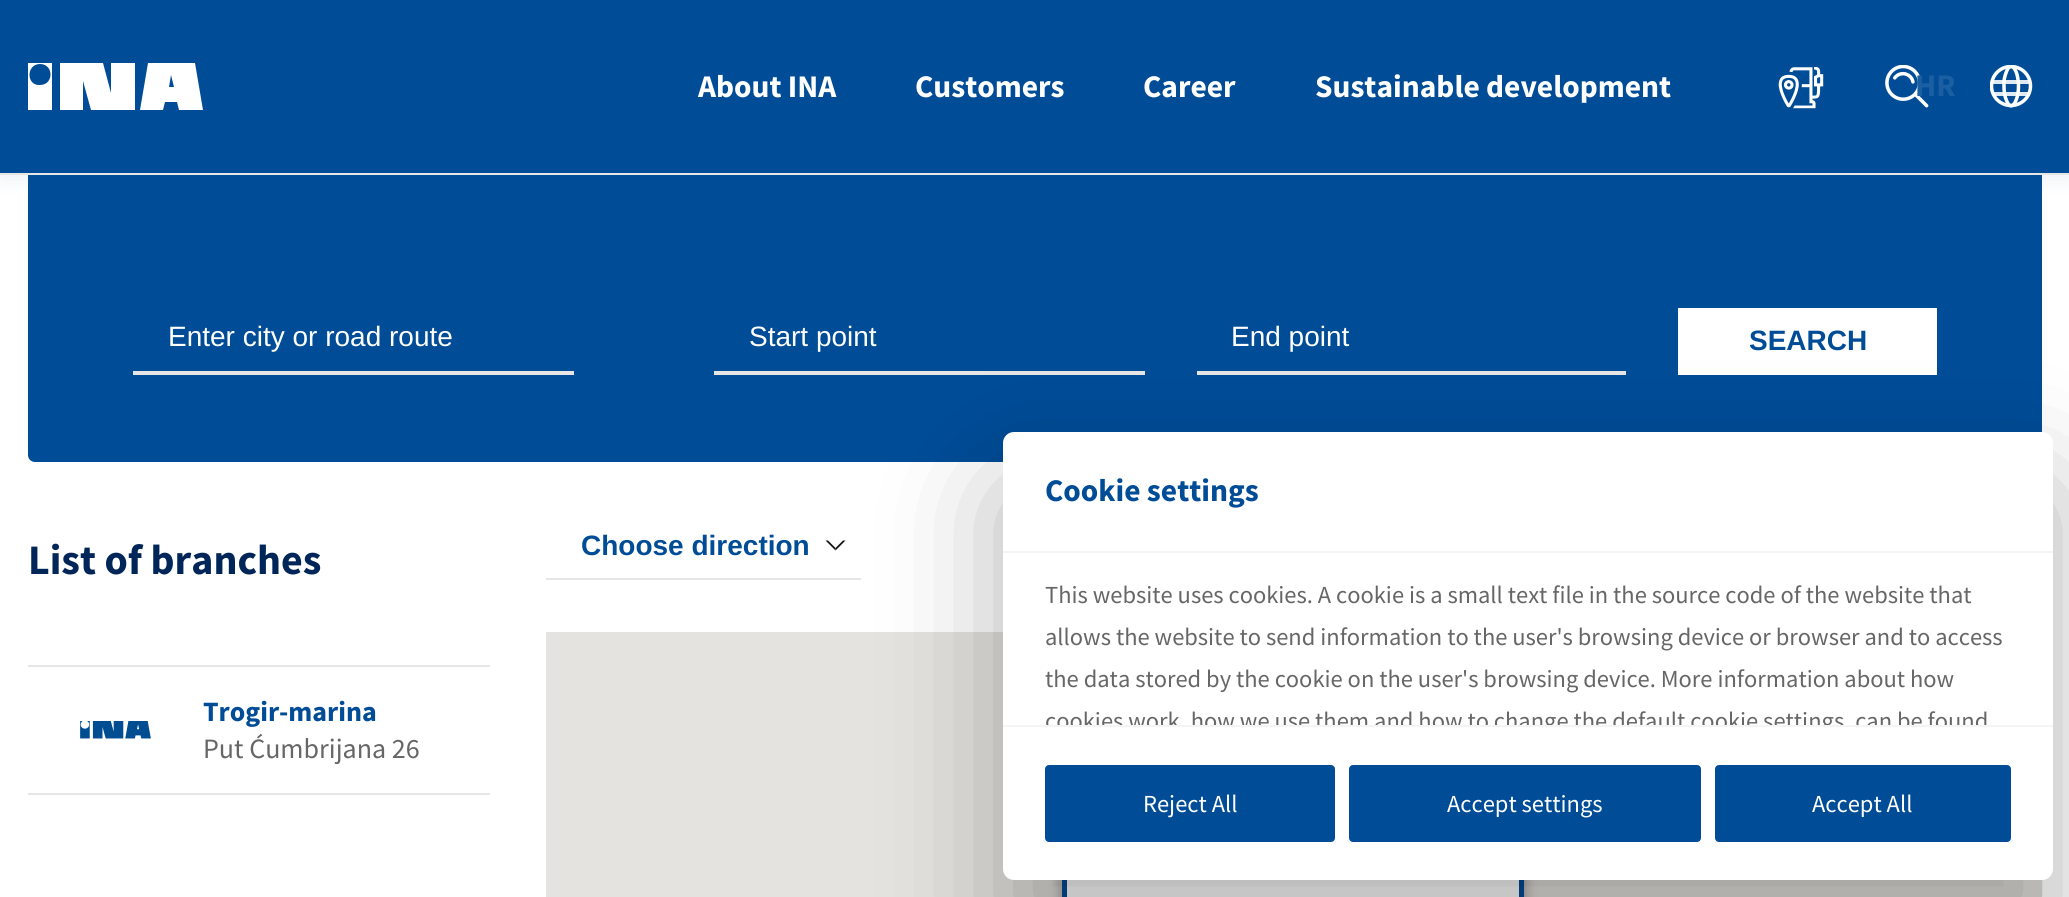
import math
import cairo

surface = cairo.ImageSurface(cairo.FORMAT_RGB24, 2069, 897)
ctx = cairo.Context(surface)
options = cairo.FontOptions()
options.set_hint_metrics(cairo.HINT_METRICS_OFF)
options.set_hint_style(cairo.HINT_STYLE_NONE)
ctx.set_font_options(options)
ctx.set_miter_limit(4)


def set_color(code):
    ctx.set_source_rgb(*(v / 255 for v in bytes.fromhex(code[-6:])))


def draw_text(x, y, s, family, size, color, bold=False, italic=False):
    ctx.select_font_face(family, cairo.FONT_SLANT_ITALIC if italic else cairo.FONT_SLANT_NORMAL, cairo.FONT_WEIGHT_BOLD if bold else cairo.FONT_WEIGHT_NORMAL)
    ctx.set_font_size(size)
    set_color(color)
    ctx.move_to(x, y)
    ctx.show_text(s)


def fill_rect(x, y, w, h, color):
    set_color(color)
    ctx.rectangle(x, y, w, h)
    ctx.fill()


def rounded_rect(x, y, w, h, r):
    ctx.new_sub_path()
    for i, (u, v) in enumerate([(x + w - r, y + h - r), (x + r, y + h - r), (x + r, y + r), (x + w - r, y + r)]):
        ctx.arc(u, v, r, i * math.pi / 2, (i + 1) * math.pi / 2)
    ctx.close_path()


def draw_shadow(x, y, w, h, r, blur, alpha):
    ctx.push_group_with_content(cairo.CONTENT_ALPHA)
    ctx.set_operator(cairo.OPERATOR_SOURCE)
    for i in range(15, -16, -2):
        e = blur * i / 6
        if min(w, h) + 2 * e > 0:
            ctx.set_source_rgba(0, 0, 0, alpha * math.erfc((i - 1) / 8.5) / 2)
            rounded_rect(x - e, y - e, w + 2 * e, h + 2 * e, max(0, min(r + e + blur * .6, min(w, h) / 2 + e)))
            ctx.fill()
    ctx.mask(ctx.pop_group())


def draw_image(path, x, y, w, h):
    ctx.save()
    ctx.set_source_surface(cairo.ImageSurface.create_from_png(path), x, y)
    ctx.rectangle(x, y, w, h)
    ctx.fill()
    ctx.restore()


set_color("#ffffff")
ctx.paint()
set_color("#004c97")
rounded_rect(28, 32, 2014, 430, 7)
ctx.fill()
set_color("#004c97")
draw_shadow(0, 4, 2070, 175, 0, 10.5, 0.08)
fill_rect(0, 0, 2069, 173, "#004c97")
fill_rect(0, 173, 2069, 2, "#e6e6e6")
set_color("#ffffff")
ctx.new_path()
ctx.move_to(60, 63)
ctx.line_to(103, 63)
ctx.line_to(111, 93)
ctx.line_to(111, 63)
ctx.line_to(135, 63)
ctx.line_to(135, 110)
ctx.line_to(91, 110)
ctx.line_to(83, 81)
ctx.line_to(83, 110)
ctx.line_to(60, 110)
ctx.close_path()
ctx.move_to(165, 102)
ctx.line_to(163, 110)
ctx.line_to(140, 110)
ctx.line_to(148, 63)
ctx.line_to(195, 63)
ctx.line_to(203, 110)
ctx.line_to(179, 110)
ctx.line_to(177, 102)
ctx.close_path()
ctx.move_to(171, 75)
ctx.line_to(169, 87)
ctx.line_to(174, 87)
ctx.close_path()
ctx.move_to(40, 64)
ctx.curve_to(26, 64, 26, 86, 40, 85)
ctx.curve_to(54, 85, 54, 64, 40, 64)
ctx.close_path()
ctx.move_to(28, 63)
ctx.line_to(52, 63)
ctx.line_to(52, 110)
ctx.line_to(28, 110)
ctx.close_path()
ctx.fill()
draw_text(698, 97, "About INA", "Source Sans Pro", 31.5, "#ffffff", bold=True)
draw_text(915, 97, "Customers", "Source Sans Pro", 31.5, "#ffffff", bold=True)
draw_text(1143, 97, "Career", "Source Sans Pro", 31.5, "#ffffff", bold=True)
draw_text(1315, 97, "Sustainable development", "Source Sans Pro", 31.5, "#ffffff", bold=True)
draw_image("assets/img1.png", 1778, 67, 46, 42)
draw_image("assets/img2.png", 1885, 65, 44, 43)
draw_text(1915, 96, "HR", "Source Sans Pro", 31.5, "#1b5fa2", bold=True)
fill_rect(1993, 92, 37, 4, "#dfe9f2")
fill_rect(1993, 80, 37, 4, "#dfe9f2")
ctx.save()
ctx.rectangle(1990, 65, 44, 44)
ctx.clip()
ctx.new_path()
ctx.move_to(2018.5, 86)
ctx.curve_to(2018.5, 90, 2018, 94, 2017, 97.5)
ctx.curve_to(2015, 104.5, 2010.5, 110.5, 2006.5, 100.5)
ctx.curve_to(2004.5, 96, 2004, 91, 2004, 86)
ctx.curve_to(2003.5, 81.5, 2004.5, 76.5, 2006.5, 71.5)
ctx.curve_to(2010.5, 62, 2015, 67.5, 2017, 74.5)
ctx.curve_to(2018, 78.5, 2018.5, 82.5, 2018.5, 86)
ctx.close_path()
set_color("#ffffff")
ctx.set_line_width(3.5)
ctx.stroke()
ctx.arc(2011, 86, 19.5, 0, 2 * math.pi)
ctx.stroke()
ctx.restore()
fill_rect(133, 371, 441, 4, "#e6e6e6")
draw_text(168, 346, "Enter city or road route", "Liberation Sans", 28, "#ffffff")
fill_rect(714, 371, 431, 4, "#e6e6e6")
draw_text(749, 346, "Start point", "Liberation Sans", 28, "#ffffff")
fill_rect(1197, 371, 429, 4, "#e6e6e6")
draw_text(1231, 346, "End point", "Liberation Sans", 28, "#ffffff")
fill_rect(1678, 308, 259, 67, "#ffffff")
draw_text(1749, 350, "SEARCH", "Liberation Sans", 28, "#004c97", bold=True)
draw_text(28, 574, "List of branches", "Source Sans Pro", 42, "#002659", bold=True)
fill_rect(28, 665, 462, 2, "#e6e6e6")
fill_rect(28, 793, 462, 2, "#e6e6e6")
draw_image("assets/img3.png", 80, 721, 71, 18)
draw_text(203, 721, "Trogir-marina", "Source Sans Pro", 28, "#004c97", bold=True)
draw_text(203, 758, "Put Ćumbrijana 26", "Source Sans Pro", 28, "#666666")
fill_rect(546, 578, 315, 2, "#e6e6e6")
draw_text(581, 555, "Choose direction", "Liberation Sans", 28, "#004c97", bold=True)
set_color("#111111")
ctx.new_path()
ctx.move_to(845.5, 540.5)
ctx.line_to(835.5, 550.5)
ctx.line_to(835.5, 548)
ctx.line_to(843, 540.5)
ctx.close_path()
ctx.fill()
ctx.new_path()
ctx.move_to(835.5, 550.5)
ctx.line_to(825.5, 540.5)
ctx.line_to(828, 540.5)
ctx.line_to(835.5, 548)
ctx.close_path()
ctx.fill()
fill_rect(546, 632, 1496, 265, "#e5e3df")
set_color("#000000")
draw_shadow(1061, 739, 465, 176, 0, 6, 0.3)
fill_rect(1067, 880, 452, 17, "#ffffff")
ctx.rectangle(1064.5, 739.5, 457, 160)
set_color("#004c97")
ctx.set_line_width(5)
ctx.stroke()
set_color("#000000")
draw_shadow(1003, 488, 1050, 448, 11, 59.5, 0.3)
set_color("#ffffff")
rounded_rect(1003, 432, 1050, 448, 11)
ctx.fill()
fill_rect(1003, 551, 1050, 2, "#f4f4f4")
draw_text(1045, 501, "Cookie settings", "Source Sans Pro", 31.5, "#004c97", bold=True)
draw_text(1045, 603, "This website uses cookies. A cookie is a small text file in the source code of the website that", "Source Sans Pro", 24.5, "#666666")
draw_text(1045, 645, "allows the website to send information to the user's browsing device or browser and to access", "Source Sans Pro", 24.5, "#666666")
draw_text(1045, 687, "the data stored by the cookie on the user's browsing device. More information about how", "Source Sans Pro", 24.5, "#666666")
ctx.save()
ctx.rectangle(1003, 553, 1050, 172)
ctx.clip()
draw_text(1045, 729, "cookies work, how we use them and how to change the default cookie settings, can be found", "Source Sans Pro", 24.5, "#666666")
ctx.restore()
fill_rect(1003, 725, 1050, 2, "#f4f4f4")
set_color("#004c97")
rounded_rect(1047, 767, 286, 73, 2)
ctx.fill_preserve()
ctx.set_line_width(4)
ctx.stroke()
draw_text(1143, 812, "Reject All", "Source Sans Pro", 24.5, "#ffffff")
set_color("#004c97")
rounded_rect(1351, 767, 348, 73, 2)
ctx.fill_preserve()
ctx.stroke()
draw_text(1447, 812, "Accept settings", "Source Sans Pro", 24.5, "#ffffff")
set_color("#004c97")
rounded_rect(1717, 767, 292, 73, 2)
ctx.fill_preserve()
ctx.stroke()
draw_text(1812, 812, "Accept All", "Source Sans Pro", 24.5, "#ffffff")
surface.write_to_png("output.png")
